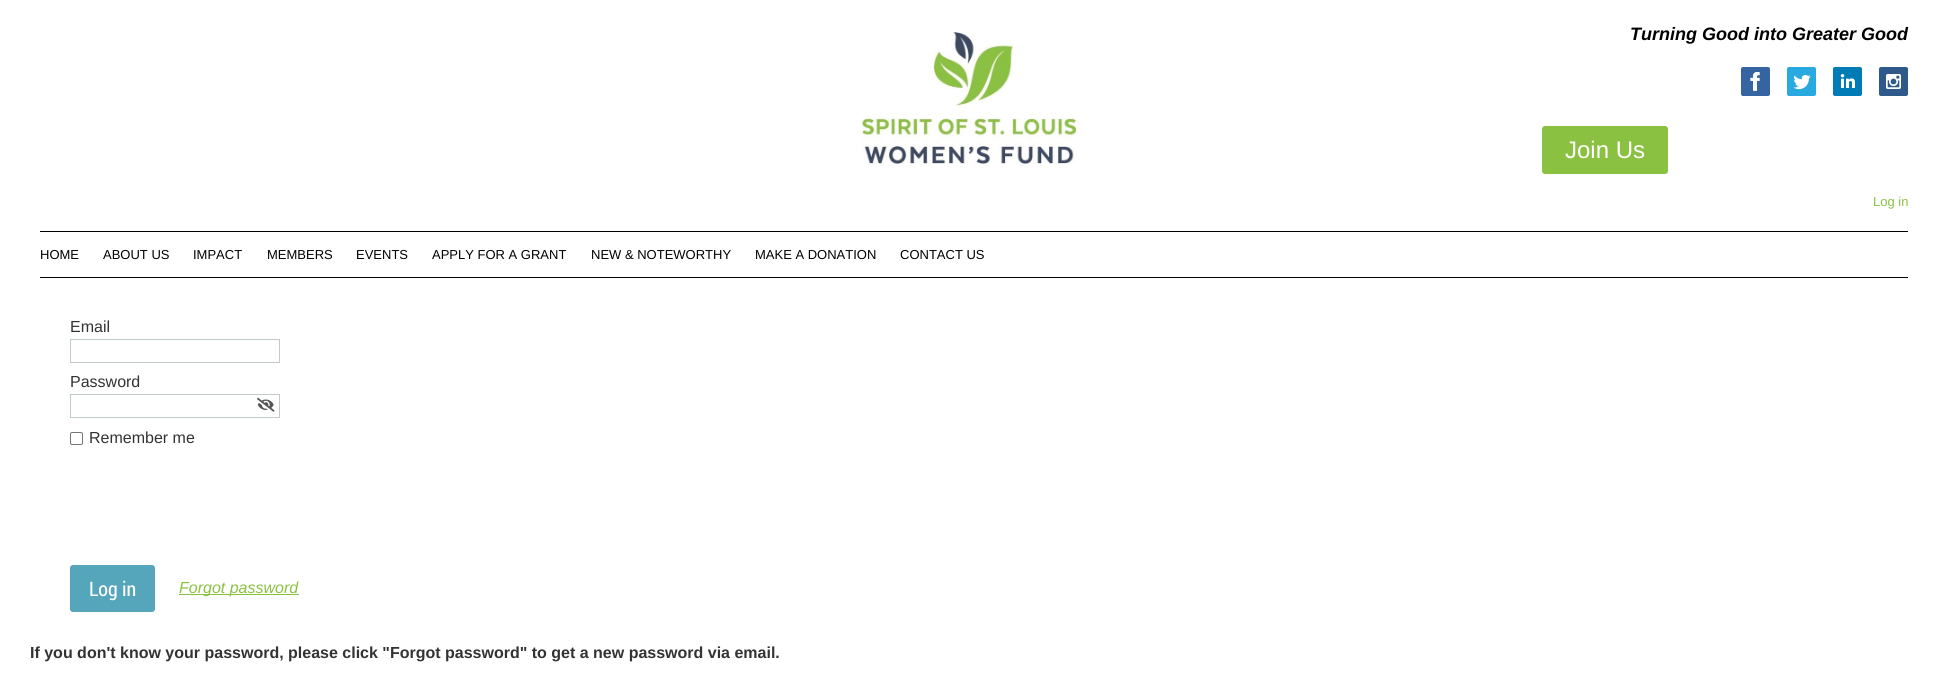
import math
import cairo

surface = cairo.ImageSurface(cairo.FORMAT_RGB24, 1938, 676)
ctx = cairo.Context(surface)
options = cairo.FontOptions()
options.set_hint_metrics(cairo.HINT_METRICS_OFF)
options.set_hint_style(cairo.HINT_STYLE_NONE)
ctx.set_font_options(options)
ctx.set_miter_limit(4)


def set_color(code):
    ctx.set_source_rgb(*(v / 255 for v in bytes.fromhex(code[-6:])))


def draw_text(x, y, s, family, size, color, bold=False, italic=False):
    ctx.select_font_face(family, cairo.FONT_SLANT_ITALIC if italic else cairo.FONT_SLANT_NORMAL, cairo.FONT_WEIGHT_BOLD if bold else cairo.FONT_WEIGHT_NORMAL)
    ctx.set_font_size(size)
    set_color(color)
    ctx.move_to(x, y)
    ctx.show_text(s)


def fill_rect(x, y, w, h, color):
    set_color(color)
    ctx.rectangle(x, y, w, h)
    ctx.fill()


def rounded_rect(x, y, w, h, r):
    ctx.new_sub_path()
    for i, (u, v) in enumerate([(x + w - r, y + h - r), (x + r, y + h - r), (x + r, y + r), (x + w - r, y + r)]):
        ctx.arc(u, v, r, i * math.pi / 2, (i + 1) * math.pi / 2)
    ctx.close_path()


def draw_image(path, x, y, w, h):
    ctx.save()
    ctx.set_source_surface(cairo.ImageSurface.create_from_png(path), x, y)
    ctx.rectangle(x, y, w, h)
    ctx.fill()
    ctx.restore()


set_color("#ffffff")
ctx.paint()
draw_image("assets/img1.png", 862, 32, 214, 132)
draw_text(1630, 40, "Turning Good into Greater Good", "Liberation Sans", 18, "#000000", bold=True, italic=True)
draw_image("assets/img2.png", 1741, 67, 29, 29)
draw_image("assets/img3.png", 1787, 67, 29, 29)
draw_image("assets/img4.png", 1833, 67, 29, 29)
draw_image("assets/img5.png", 1879, 67, 29, 29)
set_color("#8bc141")
rounded_rect(1542, 126, 126, 48, 3)
ctx.fill()
draw_text(1565, 158, "Join Us", "Liberation Sans", 24, "#ffffff")
draw_text(1873, 206, "Log in", "Liberation Sans", 13, "#8bc141")
fill_rect(40, 231, 1868, 1, "#000000")
fill_rect(40, 277, 1868, 1, "#000000")
draw_text(40, 259, "HOME", "Liberation Sans", 13, "#000000")
draw_text(103, 259, "ABOUT US", "Liberation Sans", 13, "#000000")
draw_text(193, 259, "IMPACT", "Liberation Sans", 13, "#000000")
draw_text(267, 259, "MEMBERS", "Liberation Sans", 13, "#000000")
draw_text(356, 259, "EVENTS", "Liberation Sans", 13, "#000000")
draw_text(432, 259, "APPLY FOR A GRANT", "Liberation Sans", 13, "#000000")
draw_text(591, 259, "NEW & NOTEWORTHY", "Liberation Sans", 13, "#000000")
draw_text(755, 259, "MAKE A DONATION", "Liberation Sans", 13, "#000000")
draw_text(900, 259, "CONTACT US", "Liberation Sans", 13, "#000000")
draw_text(70, 332, "Email", "Liberation Sans", 16, "#333333")
ctx.rectangle(70.5, 339.5, 209, 23)
set_color("#c1cbcc")
ctx.set_line_width(1)
ctx.stroke()
draw_text(70, 387, "Password", "Liberation Sans", 16, "#333333")
ctx.rectangle(70.5, 394.5, 209, 23)
set_color("#c1cbcc")
ctx.stroke()
draw_image("assets/img6.png", 257, 397, 18, 15)
rounded_rect(70.5, 432.5, 12, 12, 1.5)
set_color("#767676")
ctx.stroke()
draw_text(89, 443, "Remember me", "Liberation Sans", 16, "#333333")
set_color("#55a6bb")
rounded_rect(70, 565, 85, 47, 3)
ctx.fill()
draw_text(89, 596, "Log in", "Roboto Condensed", 20, "#ffffff")
fill_rect(179, 594, 120, 1, "#8bc141")
draw_text(179, 593, "Forgot password", "Liberation Sans", 16, "#8bc141", italic=True)
draw_text(30, 658, "If you don't know your password, please click \"Forgot password\" to get a new password via email.", "Liberation Sans", 16, "#333333", bold=True)
surface.write_to_png("output.png")
